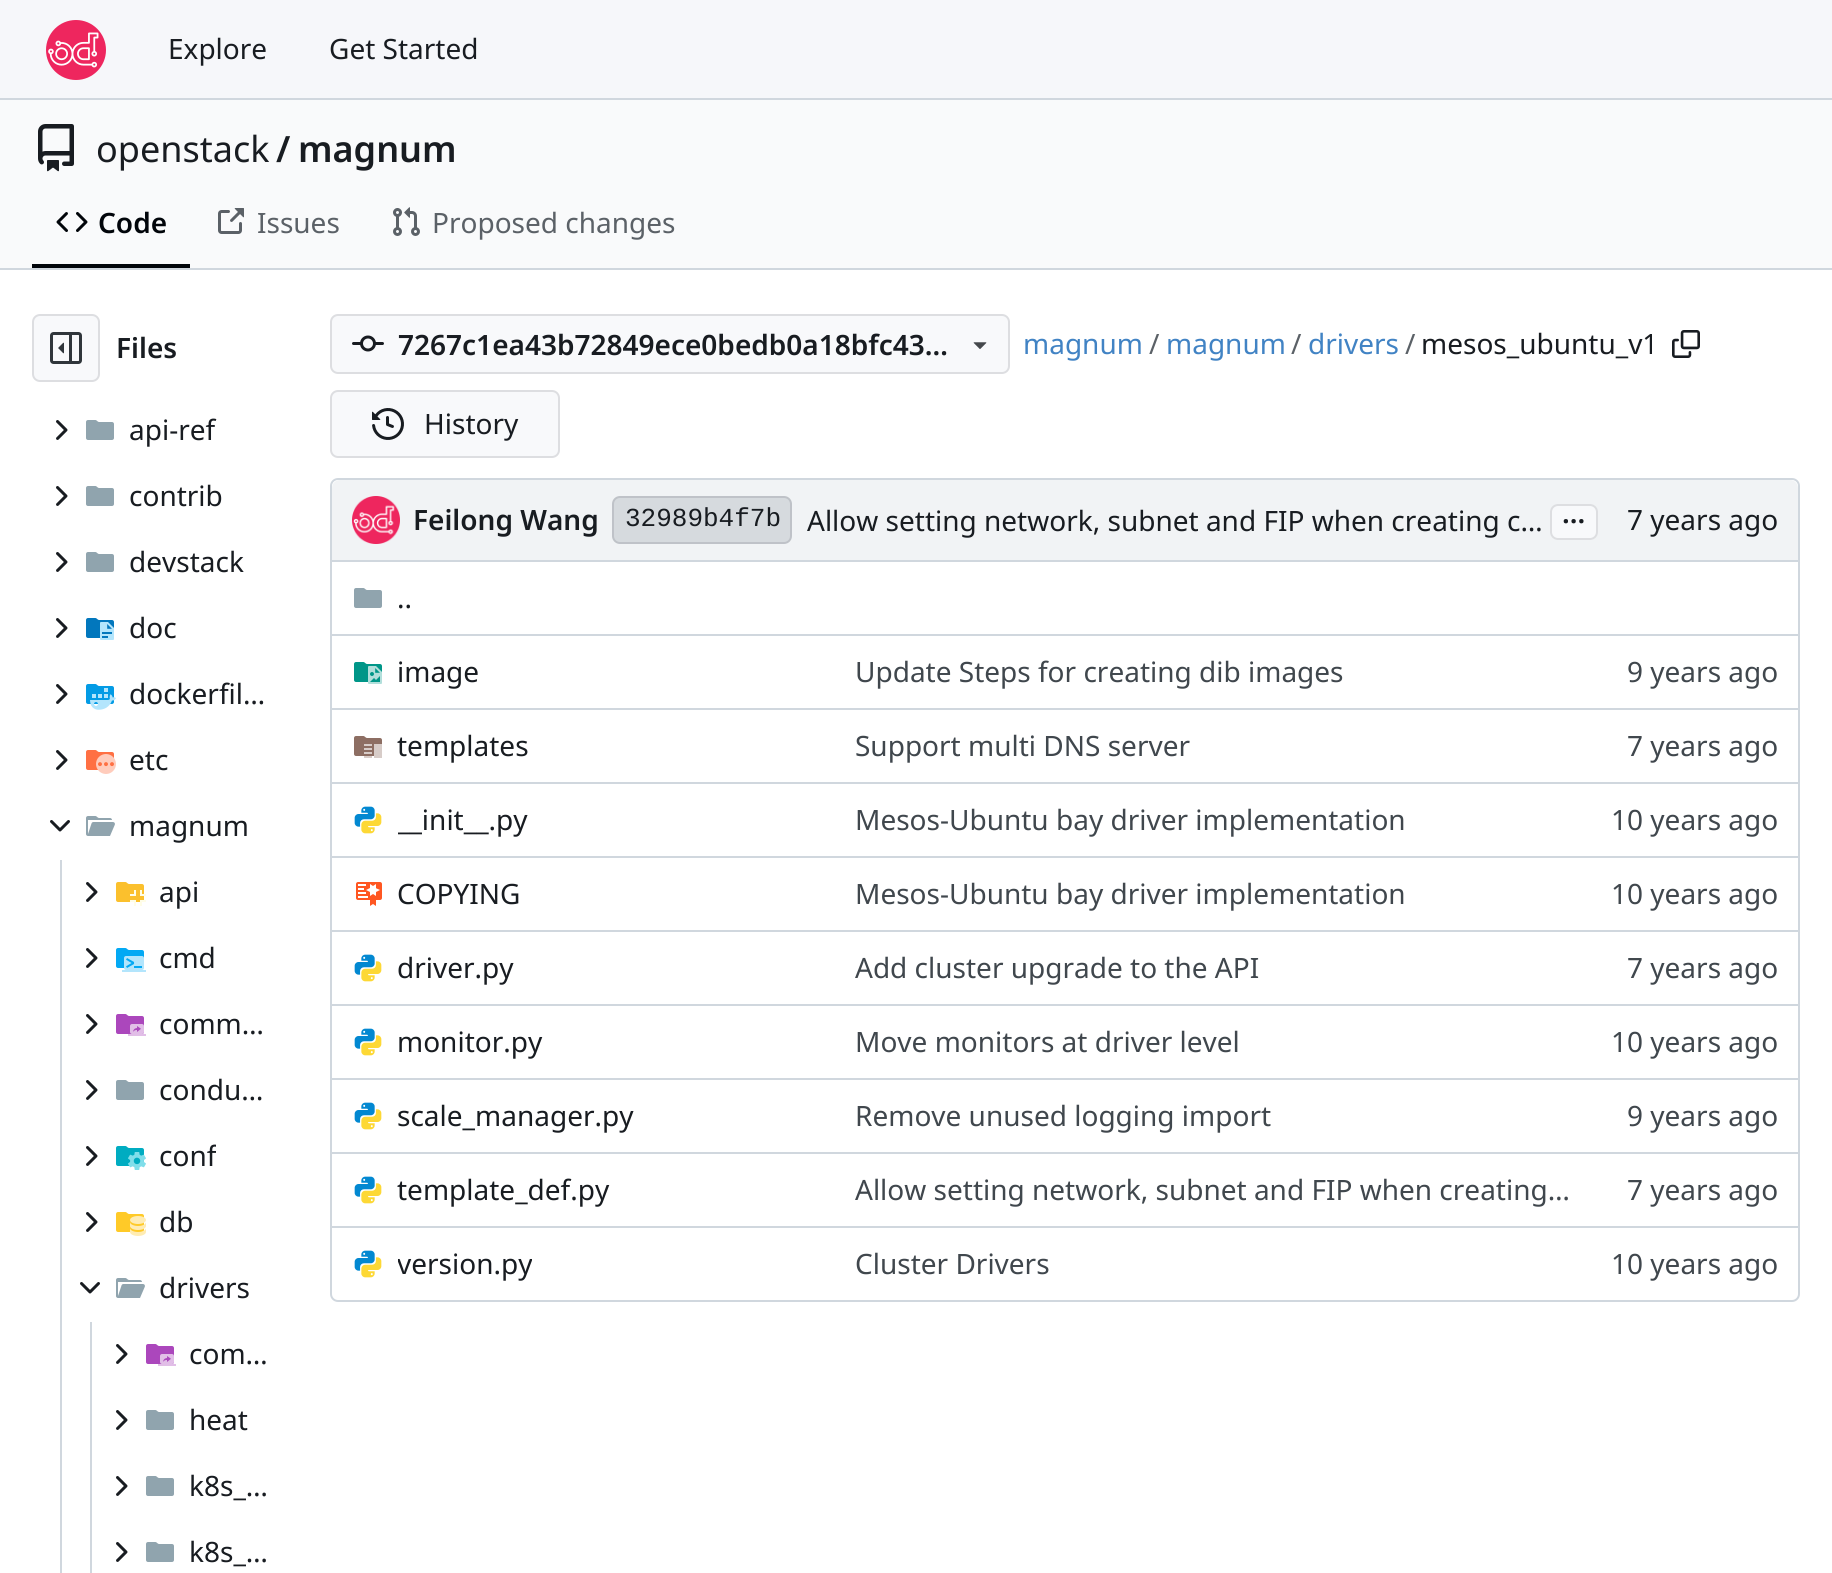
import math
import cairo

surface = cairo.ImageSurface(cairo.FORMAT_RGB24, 1832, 1573)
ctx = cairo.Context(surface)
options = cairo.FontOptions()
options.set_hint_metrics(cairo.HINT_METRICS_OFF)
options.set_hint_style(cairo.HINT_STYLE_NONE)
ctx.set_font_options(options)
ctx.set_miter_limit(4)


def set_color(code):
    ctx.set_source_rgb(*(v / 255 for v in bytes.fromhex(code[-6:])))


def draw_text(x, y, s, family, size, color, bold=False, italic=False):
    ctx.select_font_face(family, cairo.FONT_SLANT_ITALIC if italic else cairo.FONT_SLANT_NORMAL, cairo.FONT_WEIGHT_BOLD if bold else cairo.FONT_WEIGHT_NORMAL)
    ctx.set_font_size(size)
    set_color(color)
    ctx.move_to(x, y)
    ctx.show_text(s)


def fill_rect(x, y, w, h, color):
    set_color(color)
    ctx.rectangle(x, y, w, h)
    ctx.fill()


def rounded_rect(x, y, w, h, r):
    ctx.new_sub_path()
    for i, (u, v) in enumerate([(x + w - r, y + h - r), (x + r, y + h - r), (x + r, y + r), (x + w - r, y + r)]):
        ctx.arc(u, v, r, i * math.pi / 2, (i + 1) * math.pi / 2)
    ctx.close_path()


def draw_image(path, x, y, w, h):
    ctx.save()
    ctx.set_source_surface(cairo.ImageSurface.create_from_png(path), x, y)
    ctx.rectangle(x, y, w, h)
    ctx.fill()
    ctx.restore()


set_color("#ffffff")
ctx.paint()
fill_rect(0, 0, 1832, 98, "#f6f7fa")
fill_rect(0, 98, 1832, 2, "#d0d7de")
draw_image("assets/img1.png", 46, 20, 60, 60)
draw_text(168, 59, "Explore", "Noto Sans", 28, "#181c21")
draw_text(329, 59, "Get Started", "Noto Sans", 28, "#181c21")
fill_rect(0, 100, 1832, 168, "#f9fafb")
draw_image("assets/img2.png", 38, 124, 36, 48)
draw_text(96, 162, "openstack", "Noto Sans", 36, "#181c21")
draw_text(276, 162, "/", "Noto Sans SemiBold", 36, "#181c21")
draw_text(298, 162, "magnum", "Noto Sans SemiBold", 36, "#181c21")
fill_rect(32, 264, 158, 4, "#01050a")
draw_image("assets/img3.png", 56, 212, 32, 20)
draw_text(98, 233, "Code", "Noto Sans SemiBold", 28, "#01050a")
draw_image("assets/img4.png", 218, 208, 26, 26)
draw_text(257, 233, "Issues", "Noto Sans", 28, "#5b6167")
draw_image("assets/img5.png", 393, 207, 27, 29)
draw_text(432, 233, "Proposed changes", "Noto Sans", 28, "#5b6167")
fill_rect(0, 268, 1832, 2, "#d0d7de")
set_color("#f8f9fb")
rounded_rect(32, 314, 68, 68, 8)
ctx.fill()
rounded_rect(33, 315, 66, 66, 7)
ctx.set_source_rgba(0, 0, 0.09, 0.11)
ctx.stroke()
draw_image("assets/img6.png", 50, 332, 32, 32)
draw_text(116, 358, "Files", "Noto Sans SemiBold", 28, "#181c21")
draw_image("assets/img7.png", 56, 420, 12, 20)
draw_image("assets/img8.png", 86, 420, 28, 20)
draw_text(129, 440, "api-ref", "Noto Sans", 28, "#181c21")
draw_image("assets/img7.png", 56, 486, 12, 20)
draw_image("assets/img8.png", 86, 486, 28, 20)
draw_text(129, 506, "contrib", "Noto Sans", 28, "#181c21")
draw_image("assets/img7.png", 56, 552, 12, 20)
draw_image("assets/img8.png", 86, 552, 28, 20)
draw_text(129, 572, "devstack", "Noto Sans", 28, "#181c21")
draw_image("assets/img7.png", 56, 618, 12, 20)
draw_image("assets/img9.png", 86, 618, 28, 22)
draw_text(129, 638, "doc", "Noto Sans", 28, "#181c21")
draw_image("assets/img7.png", 56, 684, 12, 20)
draw_image("assets/img10.png", 86, 684, 30, 26)
draw_text(129, 704, "dockerfil…", "Noto Sans", 28, "#181c21")
draw_image("assets/img7.png", 56, 750, 12, 20)
draw_image("assets/img11.png", 86, 750, 30, 24)
draw_text(129, 770, "etc", "Noto Sans", 28, "#181c21")
draw_image("assets/img12.png", 50, 820, 20, 12)
draw_image("assets/img13.png", 86, 816, 29, 20)
draw_text(129, 836, "magnum", "Noto Sans", 28, "#181c21")
fill_rect(60, 860, 2, 713, "#d0d7de")
draw_image("assets/img7.png", 86, 882, 12, 20)
draw_image("assets/img14.png", 116, 882, 30, 24)
draw_text(159, 902, "api", "Noto Sans", 28, "#181c21")
draw_image("assets/img7.png", 86, 948, 12, 20)
draw_image("assets/img15.png", 116, 948, 30, 24)
draw_text(159, 968, "cmd", "Noto Sans", 28, "#181c21")
draw_image("assets/img7.png", 86, 1014, 12, 20)
draw_image("assets/img16.png", 116, 1014, 30, 22)
draw_text(159, 1034, "comm…", "Noto Sans", 28, "#181c21")
draw_image("assets/img7.png", 86, 1080, 12, 20)
draw_image("assets/img8.png", 116, 1080, 28, 20)
draw_text(159, 1100, "condu…", "Noto Sans", 28, "#181c21")
draw_image("assets/img7.png", 86, 1146, 12, 20)
draw_image("assets/img17.png", 116, 1146, 30, 24)
ctx.save()
ctx.rectangle(160, 1136, 56, 40)
ctx.clip()
draw_text(159, 1166, "conf", "Noto Sans", 28, "#181c21")
ctx.restore()
draw_image("assets/img7.png", 86, 1212, 12, 20)
draw_image("assets/img18.png", 116, 1212, 30, 24)
draw_text(159, 1232, "db", "Noto Sans", 28, "#181c21")
draw_image("assets/img12.png", 80, 1282, 20, 12)
draw_image("assets/img13.png", 116, 1278, 29, 20)
draw_text(159, 1298, "drivers", "Noto Sans", 28, "#181c21")
fill_rect(90, 1322, 2, 251, "#d0d7de")
draw_image("assets/img7.png", 116, 1344, 12, 20)
draw_image("assets/img16.png", 146, 1344, 30, 22)
draw_text(189, 1364, "com…", "Noto Sans", 28, "#181c21")
draw_image("assets/img7.png", 116, 1410, 12, 20)
draw_image("assets/img8.png", 146, 1410, 28, 20)
draw_text(189, 1430, "heat", "Noto Sans", 28, "#181c21")
draw_image("assets/img7.png", 116, 1476, 12, 20)
draw_image("assets/img8.png", 146, 1476, 28, 20)
draw_text(189, 1496, "k8s_…", "Noto Sans", 28, "#181c21")
draw_image("assets/img7.png", 116, 1542, 12, 20)
draw_image("assets/img8.png", 146, 1542, 28, 20)
draw_text(189, 1562, "k8s_…", "Noto Sans", 28, "#181c21")
set_color("#f8f9fb")
rounded_rect(330, 314, 680, 60, 8)
ctx.fill()
rounded_rect(331, 315, 678, 58, 7)
ctx.set_source_rgba(0, 0, 0.09, 0.11)
ctx.stroke()
draw_image("assets/img19.png", 352, 335, 32, 17)
draw_text(398, 355, "7267c1ea43b72849ece0bedb0a18bfc43…", "Noto Sans SemiBold", 28, "#181c21")
draw_image("assets/img20.png", 973, 342, 14, 7)
draw_text(1023, 354, "magnum", "Noto Sans", 28, "#4183c4")
draw_text(1149, 354, "/", "Noto Sans", 28, "#5b6167")
draw_text(1166, 354, "magnum", "Noto Sans", 28, "#4183c4")
draw_text(1291, 354, "/", "Noto Sans", 28, "#5b6167")
draw_text(1308, 354, "drivers", "Noto Sans", 28, "#4183c4")
draw_text(1405, 354, "/", "Noto Sans", 28, "#5b6167")
draw_text(1421, 354, "mesos_ubuntu_v1", "Noto Sans", 28, "#181c21")
draw_image("assets/img21.png", 1672, 330, 28, 28)
set_color("#f8f9fb")
rounded_rect(330, 390, 230, 68, 8)
ctx.fill()
rounded_rect(331, 391, 228, 66, 7)
ctx.set_source_rgba(0, 0, 0.09, 0.11)
ctx.stroke()
draw_image("assets/img22.png", 372, 408, 32, 32)
draw_text(424, 434, "History", "Noto Sans", 28, "#181c21")
rounded_rect(331, 479, 1468, 822, 7)
set_color("#d0d7de")
ctx.stroke()
set_color("#f1f3f5")
ctx.new_path()
ctx.move_to(340, 480)
ctx.line_to(1790, 480)
ctx.curve_to(1794.5, 480, 1798, 483.5, 1798, 488)
ctx.line_to(1798, 560)
ctx.line_to(332, 560)
ctx.line_to(332, 488)
ctx.curve_to(332, 483.5, 335.5, 480, 340, 480)
ctx.close_path()
ctx.fill()
draw_image("assets/img23.png", 352, 496, 48, 48)
draw_text(413, 530, "Feilong Wang", "Noto Sans SemiBold", 28, "#181c21")
set_color("#d6dade")
rounded_rect(612, 496, 180, 48, 8)
ctx.fill()
rounded_rect(613, 497, 178, 46, 7)
ctx.set_source_rgba(0, 0, 0.09, 0.11)
ctx.stroke()
draw_text(625, 526, "32989b4f7b", "Liberation Mono", 26, "#181c21")
draw_text(807, 531, "Allow setting network, subnet and FIP when creating c…", "Noto Sans", 28, "#181c21")
set_color("#f8f9fb")
rounded_rect(1550, 504, 48, 36, 8)
ctx.fill()
rounded_rect(1551, 505, 46, 34, 7)
ctx.set_source_rgba(0, 0, 0.09, 0.11)
ctx.stroke()
draw_text(1562, 523, "...", "Noto Sans SemiBold", 28, "#181c21")
draw_text(1627, 530, "7 years ago", "Noto Sans", 28, "#181c21")
fill_rect(332, 560, 1466, 2, "#d0d7de")
draw_image("assets/img8.png", 354, 588, 28, 20)
draw_text(397, 608, "..", "Noto Sans", 28, "#181c21")
fill_rect(332, 634, 1258, 2, "#d0d7de")
draw_image("assets/img24.png", 354, 662, 28, 22)
draw_text(397, 682, "image", "Noto Sans", 28, "#181c21")
draw_text(855, 682, "Update Steps for creating dib images", "Noto Sans", 28, "#40474d")
fill_rect(1590, 634, 208, 2, "#d0d7de")
draw_text(1627, 682, "9 years ago", "Noto Sans", 28, "#40474d")
fill_rect(332, 708, 1258, 2, "#d0d7de")
draw_image("assets/img25.png", 354, 736, 28, 22)
draw_text(397, 756, "templates", "Noto Sans", 28, "#181c21")
draw_text(855, 756, "Support multi DNS server", "Noto Sans", 28, "#40474d")
fill_rect(1590, 708, 208, 2, "#d0d7de")
draw_text(1627, 756, "7 years ago", "Noto Sans", 28, "#40474d")
fill_rect(332, 782, 1258, 2, "#d0d7de")
draw_image("assets/img26.png", 354, 806, 28, 28)
ctx.save()
ctx.rectangle(398, 800, 130, 40)
ctx.clip()
draw_text(397, 830, "__init__.py", "Noto Sans", 28, "#181c21")
ctx.restore()
draw_text(855, 830, "Mesos-Ubuntu bay driver implementation", "Noto Sans", 28, "#40474d")
fill_rect(1590, 782, 208, 2, "#d0d7de")
draw_text(1611, 830, "10 years ago", "Noto Sans", 28, "#40474d")
fill_rect(332, 856, 1258, 2, "#d0d7de")
draw_image("assets/img27.png", 356, 882, 26, 24)
draw_text(397, 904, "COPYING", "Noto Sans", 28, "#181c21")
draw_text(855, 904, "Mesos-Ubuntu bay driver implementation", "Noto Sans", 28, "#40474d")
fill_rect(1590, 856, 208, 2, "#d0d7de")
draw_text(1611, 904, "10 years ago", "Noto Sans", 28, "#40474d")
fill_rect(332, 930, 1258, 2, "#d0d7de")
draw_image("assets/img26.png", 354, 954, 28, 28)
draw_text(397, 978, "driver.py", "Noto Sans", 28, "#181c21")
draw_text(855, 978, "Add cluster upgrade to the API", "Noto Sans", 28, "#40474d")
fill_rect(1590, 930, 208, 2, "#d0d7de")
draw_text(1627, 978, "7 years ago", "Noto Sans", 28, "#40474d")
fill_rect(332, 1004, 1258, 2, "#d0d7de")
draw_image("assets/img26.png", 354, 1028, 28, 28)
draw_text(397, 1052, "monitor.py", "Noto Sans", 28, "#181c21")
draw_text(855, 1052, "Move monitors at driver level", "Noto Sans", 28, "#40474d")
fill_rect(1590, 1004, 208, 2, "#d0d7de")
draw_text(1611, 1052, "10 years ago", "Noto Sans", 28, "#40474d")
fill_rect(332, 1078, 1258, 2, "#d0d7de")
draw_image("assets/img26.png", 354, 1102, 28, 28)
draw_text(397, 1126, "scale_manager.py", "Noto Sans", 28, "#181c21")
draw_text(855, 1126, "Remove unused logging import", "Noto Sans", 28, "#40474d")
fill_rect(1590, 1078, 208, 2, "#d0d7de")
draw_text(1627, 1126, "9 years ago", "Noto Sans", 28, "#40474d")
fill_rect(332, 1152, 1258, 2, "#d0d7de")
draw_image("assets/img26.png", 354, 1176, 28, 28)
draw_text(397, 1200, "template_def.py", "Noto Sans", 28, "#181c21")
draw_text(855, 1200, "Allow setting network, subnet and FIP when creating…", "Noto Sans", 28, "#40474d")
fill_rect(1590, 1152, 208, 2, "#d0d7de")
draw_text(1627, 1200, "7 years ago", "Noto Sans", 28, "#40474d")
fill_rect(332, 1226, 1258, 2, "#d0d7de")
draw_image("assets/img26.png", 354, 1250, 28, 28)
ctx.save()
ctx.rectangle(398, 1244, 134, 40)
ctx.clip()
draw_text(397, 1274, "version.py", "Noto Sans", 28, "#181c21")
ctx.restore()
draw_text(855, 1274, "Cluster Drivers", "Noto Sans", 28, "#40474d")
fill_rect(1590, 1226, 208, 2, "#d0d7de")
draw_text(1611, 1274, "10 years ago", "Noto Sans", 28, "#40474d")
surface.write_to_png("output.png")
